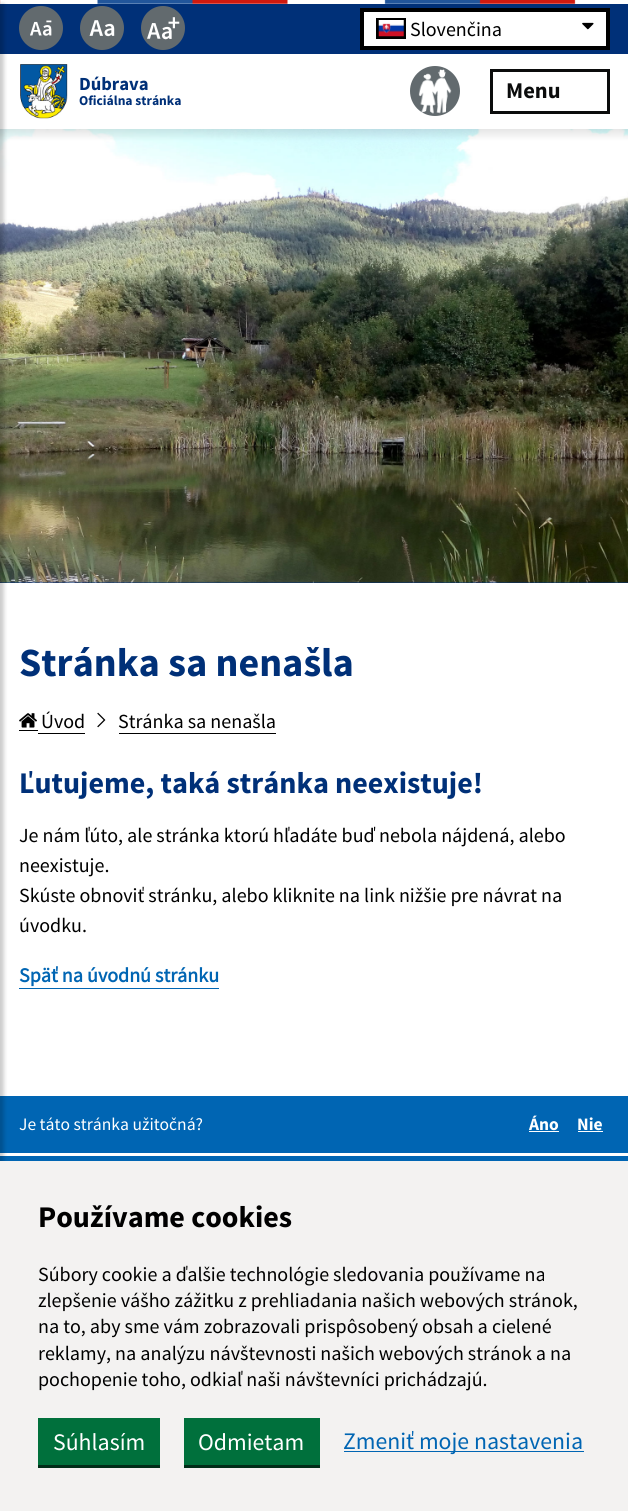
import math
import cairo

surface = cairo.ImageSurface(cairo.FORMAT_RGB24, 628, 1511)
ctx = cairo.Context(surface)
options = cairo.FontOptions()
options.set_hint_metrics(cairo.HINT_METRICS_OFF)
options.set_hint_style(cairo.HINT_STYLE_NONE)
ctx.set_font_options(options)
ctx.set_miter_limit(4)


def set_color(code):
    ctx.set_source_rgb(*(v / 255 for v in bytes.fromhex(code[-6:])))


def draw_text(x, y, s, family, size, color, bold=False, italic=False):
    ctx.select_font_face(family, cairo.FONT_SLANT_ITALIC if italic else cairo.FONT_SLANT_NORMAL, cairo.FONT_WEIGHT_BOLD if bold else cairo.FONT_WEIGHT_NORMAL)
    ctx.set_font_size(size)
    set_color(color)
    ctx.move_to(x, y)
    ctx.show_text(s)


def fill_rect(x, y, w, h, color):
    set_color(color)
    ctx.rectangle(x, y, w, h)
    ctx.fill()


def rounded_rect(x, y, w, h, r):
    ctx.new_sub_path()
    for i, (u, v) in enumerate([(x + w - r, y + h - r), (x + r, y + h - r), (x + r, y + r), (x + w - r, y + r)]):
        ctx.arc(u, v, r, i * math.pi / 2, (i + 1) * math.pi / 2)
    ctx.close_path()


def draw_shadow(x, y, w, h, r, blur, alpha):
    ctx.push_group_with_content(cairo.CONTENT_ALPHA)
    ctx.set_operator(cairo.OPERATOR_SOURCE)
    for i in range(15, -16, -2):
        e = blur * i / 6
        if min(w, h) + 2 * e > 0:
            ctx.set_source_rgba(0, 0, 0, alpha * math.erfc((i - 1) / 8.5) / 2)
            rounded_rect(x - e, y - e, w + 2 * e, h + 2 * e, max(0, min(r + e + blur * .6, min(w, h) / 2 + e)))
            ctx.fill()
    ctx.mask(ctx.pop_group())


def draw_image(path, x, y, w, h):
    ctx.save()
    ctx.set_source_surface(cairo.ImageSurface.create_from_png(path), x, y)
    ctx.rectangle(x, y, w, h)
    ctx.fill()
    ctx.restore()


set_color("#ffffff")
ctx.paint()
fill_rect(0, 4, 628, 50, "#003078")
draw_image("assets/img1.png", 0, 0, 576, 4)
fill_rect(0, 582, 628, 1, "#003078")
draw_image("assets/img9.png", 0, 129, 628, 454)
fill_rect(0, 1096, 628, 65, "#0065b3")
fill_rect(0, 1153, 628, 3, "#ffffff")
set_color("#000000")
draw_shadow(-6, 4, 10, 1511, 0, 2, 0.2)
set_color("#626a6e")
ctx.arc(41, 28, 22, 0, 2 * math.pi)
ctx.fill()
draw_image("assets/img2.png", 30, 20, 22, 16)
ctx.arc(102, 28, 22, 0, 2 * math.pi)
ctx.fill()
draw_image("assets/img3.png", 89, 20, 26, 17)
ctx.arc(163, 28, 22, 0, 2 * math.pi)
ctx.fill()
draw_image("assets/img4.png", 147, 17, 33, 23)
set_color("#ffffff")
ctx.rectangle(362, 10, 246, 38)
ctx.fill_preserve()
set_color("#000000")
ctx.set_line_width(4)
ctx.stroke()
ctx.rectangle(377.5, 19.5, 27, 18)
ctx.set_line_width(3)
ctx.stroke()
draw_image("assets/img5.png", 378, 20, 26, 17)
draw_text(410, 36, "Slovenčina", "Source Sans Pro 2", 20, "#000000")
draw_image("assets/img6.png", 582, 22, 12, 8)
draw_image("assets/img7.png", 20, 64, 48, 55)
draw_text(79, 90, "Dúbrava", "Source Sans Pro 2", 18.5, "#003078", bold=True)
draw_text(79, 105, "Oficiálna stránka", "Source Sans Pro 2", 13.5, "#003078", bold=True)
set_color("#626a6e")
ctx.new_path()
ctx.arc(435, 91, 25, 0, 2 * math.pi)
ctx.fill()
draw_image("assets/img8.png", 418, 69, 34, 45)
ctx.rectangle(491.5, 70.5, 117, 42)
set_color("#0b0c0c")
ctx.stroke()
draw_text(506, 98, "Menu", "Source Sans Pro", 22.5, "#0b0c0c", bold=True)
draw_text(19, 676, "Stránka sa nenašla", "Source Sans Pro 2", 40, "#003078", bold=True)
fill_rect(19, 730, 19, 1, "#000000")
fill_rect(38, 733, 47, 1, "#000000")
draw_image("assets/img10.png", 19, 713, 18, 15)
draw_text(41, 728, "Úvod", "Source Sans Pro 2", 20, "#000000")
draw_image("assets/img11.png", 97, 712, 9, 16)
draw_text(118, 728, "Stránka sa nenašla", "Source Sans Pro 2", 20, "#000000")
fill_rect(119, 733, 157, 1, "#000000")
draw_text(19, 793, "Ľutujeme, taká stránka neexistuje!", "Source Sans Pro 2", 30, "#003078", bold=True)
draw_text(19, 842, "Je nám ľúto, ale stránka ktorú hľadáte buď nebola nájdená, alebo", "Source Sans Pro 2", 20, "#000000")
draw_text(19, 872, "neexistuje.", "Source Sans Pro 2", 20, "#000000")
draw_text(19, 902, "Skúste obnoviť stránku, alebo kliknite na link nižšie pre návrat na", "Source Sans Pro 2", 20, "#000000")
draw_text(19, 932, "úvodku.", "Source Sans Pro 2", 20, "#000000")
draw_text(19, 982, "Späť na úvodnú stránku", "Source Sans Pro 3", 20, "#0065b3", bold=True)
fill_rect(19, 988, 200, 1, "#0065b3")
draw_text(19, 1130, "Je táto stránka užitočná?", "Source Sans Pro", 17.5, "#ffffff")
draw_text(529, 1130, "Áno", "Source Sans Pro", 17.5, "#ffffff", bold=True)
fill_rect(529, 1131, 30, 1, "#ffffff")
draw_text(577, 1130, "Nie", "Source Sans Pro", 17.5, "#ffffff", bold=True)
fill_rect(578, 1131, 25, 1, "#ffffff")
fill_rect(0, 1161, 628, 350, "#f3f2f1")
draw_text(38, 1227, "Používame cookies", "Source Sans Pro", 30, "#000000", bold=True)
draw_text(38, 1281, "Súbory cookie a ďalšie technológie sledovania používame na", "Source Sans Pro", 20, "#000000")
draw_text(38, 1307, "zlepšenie vášho zážitku z prehliadania našich webových stránok,", "Source Sans Pro", 20, "#000000")
draw_text(38, 1333, "na to, aby sme vám zobrazovali prispôsobený obsah a cielené", "Source Sans Pro", 20, "#000000")
draw_text(38, 1360, "reklamy, na analýzu návštevnosti našich webových stránok a na", "Source Sans Pro", 20, "#000000")
draw_text(38, 1386, "pochopenie toho, odkiaľ naši návštevníci prichádzajú.", "Source Sans Pro", 20, "#000000")
fill_rect(38, 1465, 122, 3, "#002d18")
fill_rect(38, 1418, 122, 47, "#00703c")
draw_text(53, 1450, "Súhlasím", "Source Sans Pro", 23.75, "#ffffff")
fill_rect(184, 1465, 136, 3, "#002d18")
fill_rect(184, 1418, 136, 47, "#00703c")
draw_text(198, 1450, "Odmietam", "Source Sans Pro", 23.75, "#ffffff")
fill_rect(344, 1451, 240, 1, "#0065b3")
draw_text(343, 1449, "Zmeniť moje nastavenia", "Source Sans Pro", 23.75, "#0065b3")
surface.write_to_png("output.png")
